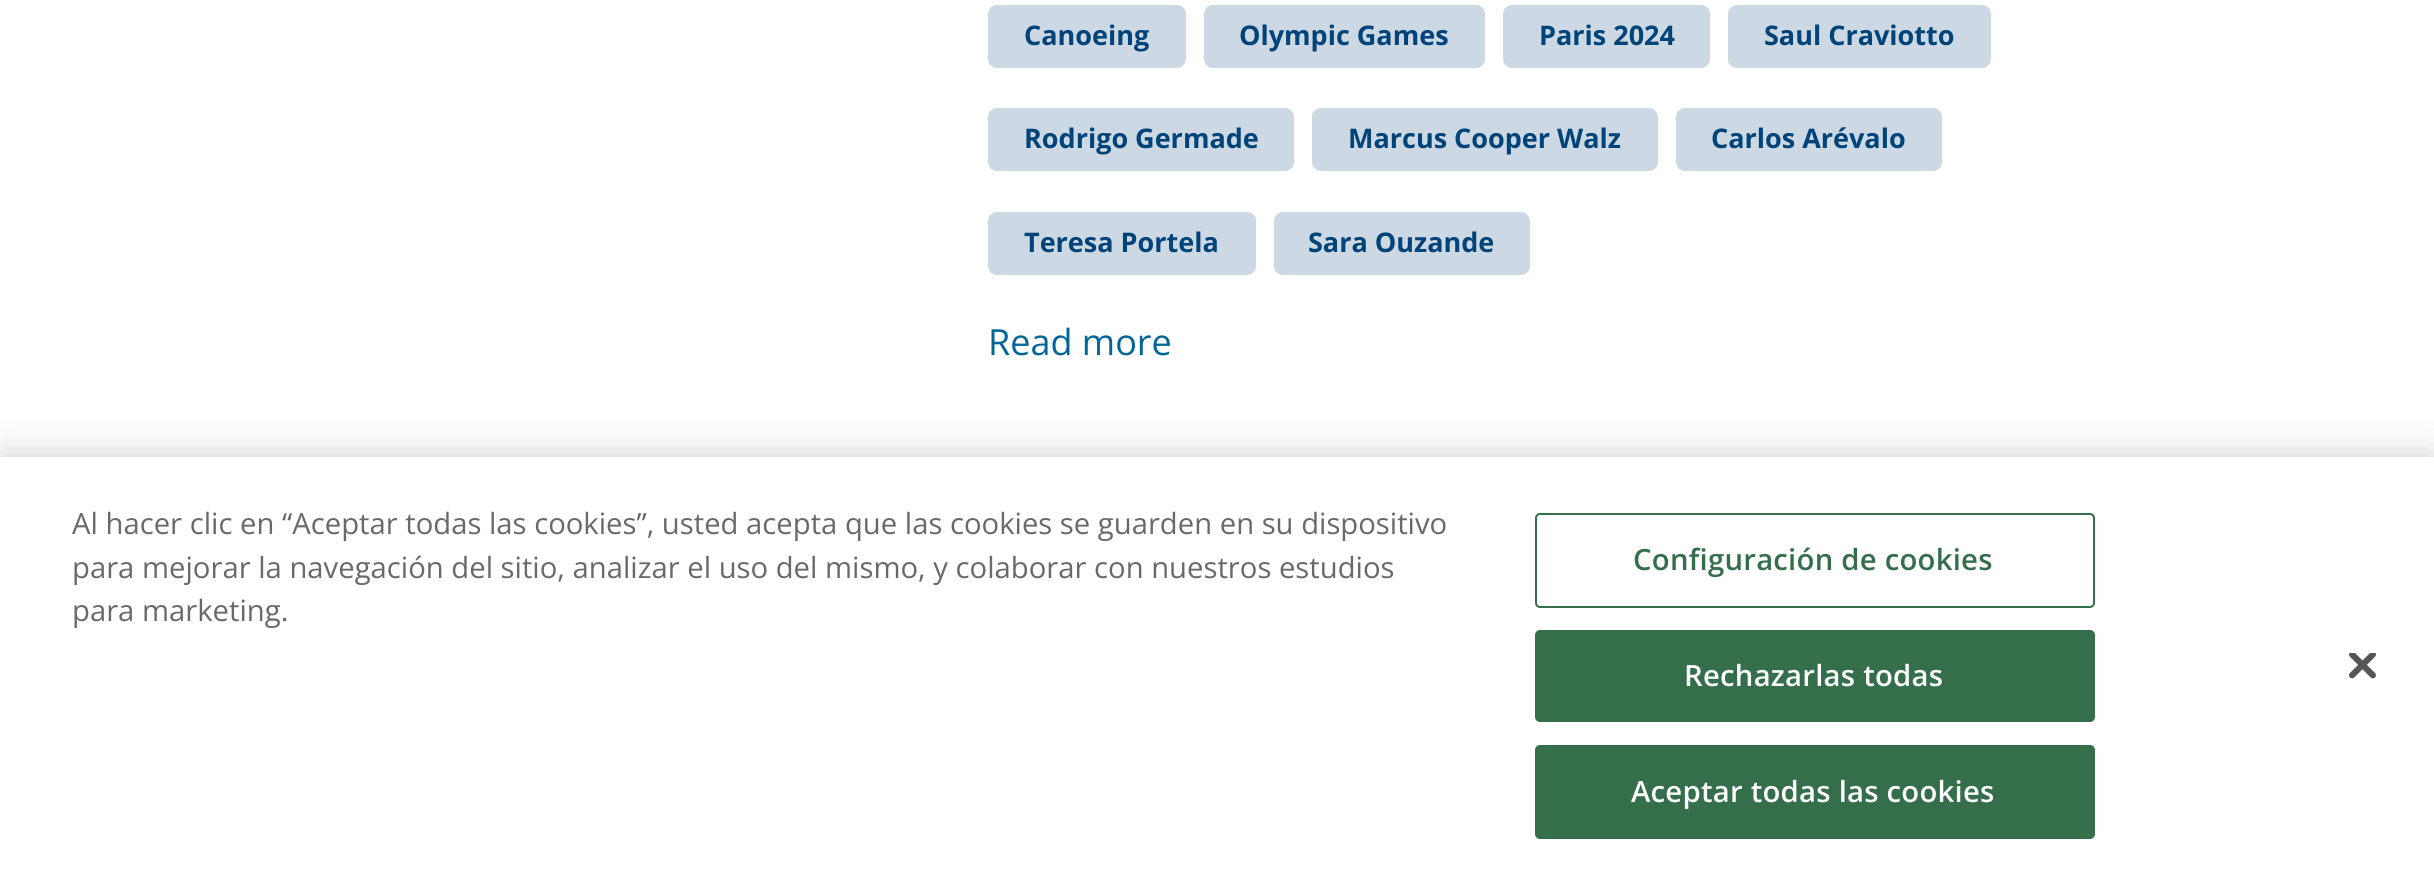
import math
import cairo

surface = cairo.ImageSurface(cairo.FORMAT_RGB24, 2434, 883)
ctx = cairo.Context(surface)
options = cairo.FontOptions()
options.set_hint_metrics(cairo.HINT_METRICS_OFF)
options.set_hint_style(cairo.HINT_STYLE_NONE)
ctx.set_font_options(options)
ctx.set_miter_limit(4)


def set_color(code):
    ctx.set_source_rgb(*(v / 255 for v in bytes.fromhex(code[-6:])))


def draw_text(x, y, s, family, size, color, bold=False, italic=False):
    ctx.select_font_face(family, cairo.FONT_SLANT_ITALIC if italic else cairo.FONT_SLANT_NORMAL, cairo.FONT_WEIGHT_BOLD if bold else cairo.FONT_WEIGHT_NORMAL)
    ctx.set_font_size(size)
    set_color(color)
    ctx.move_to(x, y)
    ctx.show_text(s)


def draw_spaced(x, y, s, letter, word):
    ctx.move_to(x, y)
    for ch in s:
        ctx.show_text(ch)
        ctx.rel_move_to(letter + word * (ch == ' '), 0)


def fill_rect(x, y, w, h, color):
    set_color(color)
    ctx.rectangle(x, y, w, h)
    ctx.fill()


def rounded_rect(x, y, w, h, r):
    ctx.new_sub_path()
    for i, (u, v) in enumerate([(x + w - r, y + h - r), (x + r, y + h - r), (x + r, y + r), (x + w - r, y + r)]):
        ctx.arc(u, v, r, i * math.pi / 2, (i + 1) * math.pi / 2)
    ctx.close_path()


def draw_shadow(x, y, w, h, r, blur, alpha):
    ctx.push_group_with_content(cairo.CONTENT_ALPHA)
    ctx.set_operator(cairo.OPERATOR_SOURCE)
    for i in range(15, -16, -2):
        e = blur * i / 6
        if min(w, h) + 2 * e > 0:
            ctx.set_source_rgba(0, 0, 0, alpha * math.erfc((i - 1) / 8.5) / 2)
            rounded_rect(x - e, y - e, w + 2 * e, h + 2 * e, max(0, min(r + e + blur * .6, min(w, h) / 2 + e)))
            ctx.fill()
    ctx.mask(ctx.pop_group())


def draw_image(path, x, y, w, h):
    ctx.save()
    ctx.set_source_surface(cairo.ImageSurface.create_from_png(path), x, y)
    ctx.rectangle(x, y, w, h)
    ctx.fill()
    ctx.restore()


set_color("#ffffff")
ctx.paint()
set_color("#ccd9e4")
rounded_rect(988, 5, 198, 63, 9)
ctx.fill()
draw_text(1024, 45, "Canoeing", "Open Sans", 27, "#004379", bold=True)
set_color("#ccd9e4")
rounded_rect(1204, 5, 281, 63, 9)
ctx.fill()
draw_text(1239, 45, "Olympic Games", "Open Sans", 27, "#004379", bold=True)
set_color("#ccd9e4")
rounded_rect(1503, 5, 207, 63, 9)
ctx.fill()
draw_text(1539, 45, "Paris 2024", "Open Sans", 27, "#004379", bold=True)
set_color("#ccd9e4")
rounded_rect(1728, 5, 263, 63, 9)
ctx.fill()
draw_text(1764, 45, "Saul Craviotto", "Open Sans", 27, "#004379", bold=True)
set_color("#ccd9e4")
rounded_rect(988, 108, 306, 63, 9)
ctx.fill()
draw_text(1024, 148, "Rodrigo Germade", "Open Sans", 27, "#004379", bold=True)
set_color("#ccd9e4")
rounded_rect(1312, 108, 346, 63, 9)
ctx.fill()
draw_text(1348, 148, "Marcus Cooper Walz", "Open Sans", 27, "#004379", bold=True)
set_color("#ccd9e4")
rounded_rect(1676, 108, 266, 63, 9)
ctx.fill()
draw_text(1711, 148, "Carlos Arévalo", "Open Sans", 27, "#004379", bold=True)
set_color("#ccd9e4")
rounded_rect(988, 212, 268, 63, 9)
ctx.fill()
draw_text(1024, 252, "Teresa Portela", "Open Sans", 27, "#004379", bold=True)
set_color("#ccd9e4")
rounded_rect(1274, 212, 256, 63, 9)
ctx.fill()
draw_text(1308, 252, "Sara Ouzande", "Open Sans", 27, "#004379", bold=True)
draw_text(988, 355, "Read more", "Open Sans", 36, "#006699")
set_color("#000000")
draw_shadow(0, 457, 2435, 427, 0, 20, 0.2)
fill_rect(0, 457, 2434, 426, "#ffffff")
draw_text(72, 534, "Al hacer clic en “Aceptar todas las cookies”, usted acepta que las cookies se guarden en su dispositivo", "Open Sans", 29.25, "#696969")
draw_text(72, 578, "para mejorar la navegación del sitio, analizar el uso del mismo, y colaborar con nuestros estudios", "Open Sans", 29.25, "#696969")
draw_text(72, 621, "para marketing.", "Open Sans", 29.25, "#696969")
rounded_rect(1536, 514, 558, 93, 4)
set_color("#346e4a")
ctx.stroke()
ctx.select_font_face("Open Sans SemiBold")
draw_spaced(1633, 570, "Configuración de cookies", 0.25, 0)
rounded_rect(1536, 631, 558, 90, 4)
ctx.fill_preserve()
ctx.stroke()
set_color("#ffffff")
draw_spaced(1684, 686, "Rechazarlas todas", 0.25, 0)
set_color("#346e4a")
rounded_rect(1536, 746, 558, 92, 4)
ctx.fill_preserve()
ctx.stroke()
set_color("#ffffff")
draw_spaced(1631, 802, "Aceptar todas las cookies", 0.25, 0)
draw_image("assets/img1.png", 2349, 653, 27, 26)
surface.write_to_png("output.png")
